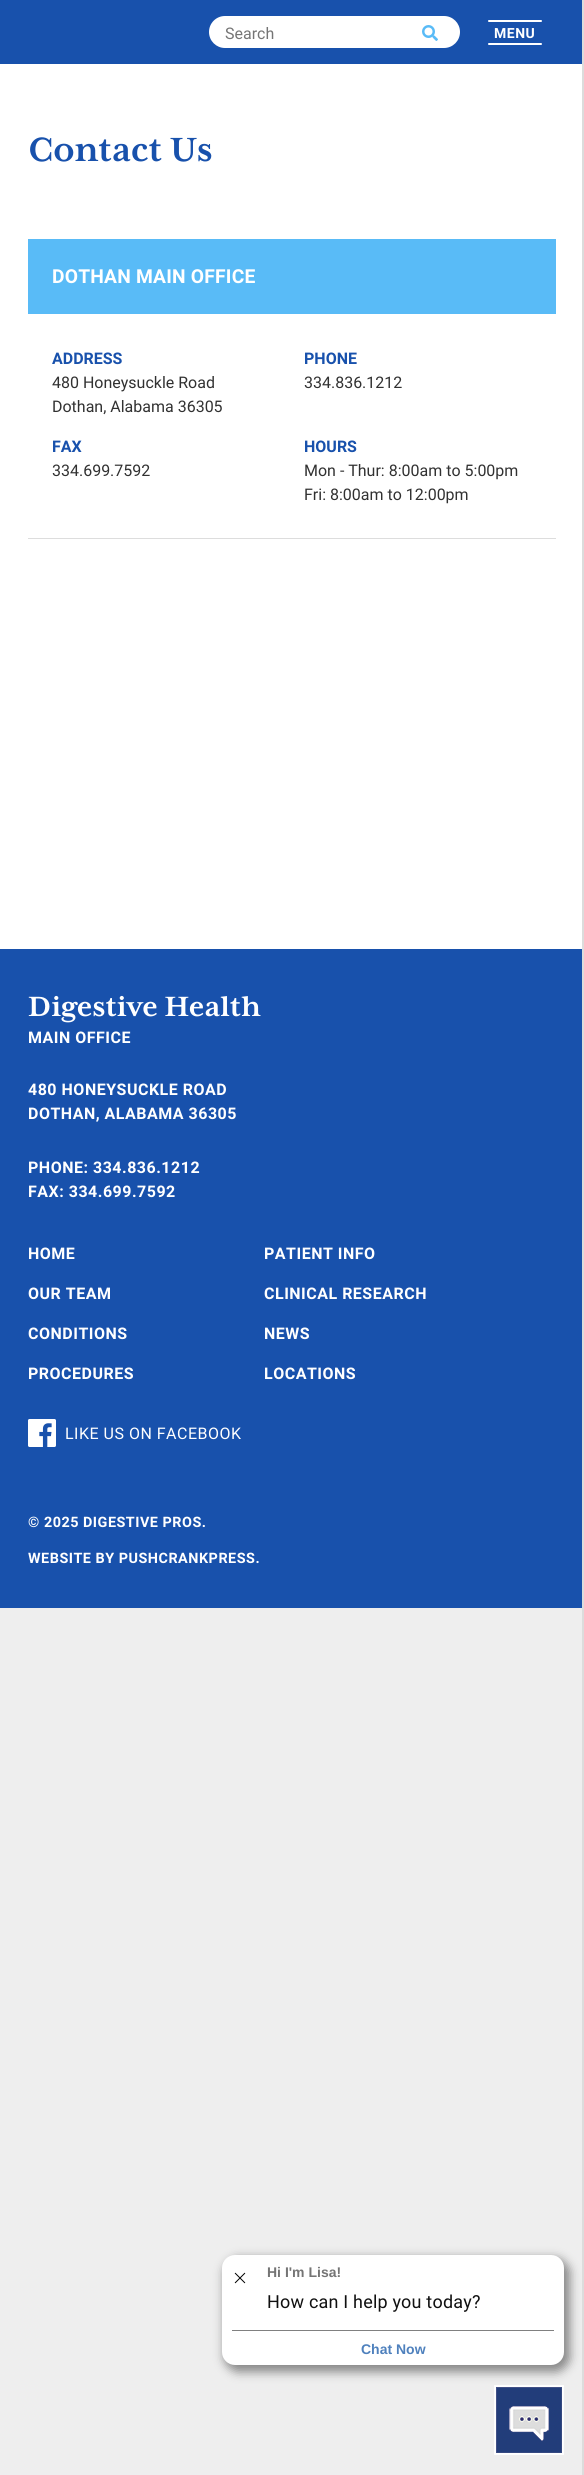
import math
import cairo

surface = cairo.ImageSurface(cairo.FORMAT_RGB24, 584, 2475)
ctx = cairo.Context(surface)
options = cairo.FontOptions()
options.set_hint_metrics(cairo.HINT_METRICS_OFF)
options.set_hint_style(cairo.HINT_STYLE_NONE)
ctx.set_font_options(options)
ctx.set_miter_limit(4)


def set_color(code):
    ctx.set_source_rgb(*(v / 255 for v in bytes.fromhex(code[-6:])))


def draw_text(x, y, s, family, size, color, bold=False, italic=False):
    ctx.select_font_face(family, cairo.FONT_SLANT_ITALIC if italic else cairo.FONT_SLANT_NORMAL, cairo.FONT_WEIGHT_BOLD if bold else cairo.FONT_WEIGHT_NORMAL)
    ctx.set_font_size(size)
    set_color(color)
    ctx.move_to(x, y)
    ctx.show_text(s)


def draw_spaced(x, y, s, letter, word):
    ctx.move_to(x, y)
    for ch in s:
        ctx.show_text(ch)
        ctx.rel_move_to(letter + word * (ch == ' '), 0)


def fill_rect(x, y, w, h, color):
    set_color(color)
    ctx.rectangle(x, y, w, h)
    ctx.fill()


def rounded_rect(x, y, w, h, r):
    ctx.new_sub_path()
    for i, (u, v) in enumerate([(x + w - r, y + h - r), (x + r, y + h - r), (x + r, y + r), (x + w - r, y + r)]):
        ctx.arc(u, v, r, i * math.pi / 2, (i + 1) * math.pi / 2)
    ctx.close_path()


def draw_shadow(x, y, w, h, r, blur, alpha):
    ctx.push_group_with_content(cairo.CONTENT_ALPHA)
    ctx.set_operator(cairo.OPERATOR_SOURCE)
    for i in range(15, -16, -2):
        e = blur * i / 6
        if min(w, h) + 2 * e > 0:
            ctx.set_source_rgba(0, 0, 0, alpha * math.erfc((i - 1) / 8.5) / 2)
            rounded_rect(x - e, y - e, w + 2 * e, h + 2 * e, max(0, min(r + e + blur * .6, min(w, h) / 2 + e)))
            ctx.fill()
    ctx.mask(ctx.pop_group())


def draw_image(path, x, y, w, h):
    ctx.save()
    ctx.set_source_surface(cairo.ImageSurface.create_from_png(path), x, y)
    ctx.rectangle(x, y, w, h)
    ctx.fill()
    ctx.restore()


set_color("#eeeeee")
ctx.paint()
fill_rect(0, 64, 582, 885, "#ffffff")
fill_rect(0, 0, 582, 64, "#1851ac")
set_color("#ffffff")
rounded_rect(209, 16, 251, 32, 16)
ctx.fill()
draw_text(225, 39, "Search", "Roboto", 16, "#757575")
draw_image("assets/img1.png", 422, 25, 16, 16)
set_color("#ffffff")
rounded_rect(488, 20, 54, 2, 1)
ctx.fill()
ctx.select_font_face("Roboto", cairo.FONT_SLANT_NORMAL, cairo.FONT_WEIGHT_BOLD)
ctx.set_font_size(14)
draw_spaced(494, 38, "MENU", 0.5, 0)
rounded_rect(488, 43, 54, 2, 1)
ctx.fill()
draw_text(28, 161, "Contact Us", "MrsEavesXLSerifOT", 38.5, "#1851ac", bold=True)
fill_rect(28, 239, 528, 75, "#59bbf7")
ctx.select_font_face("Roboto", cairo.FONT_SLANT_NORMAL, cairo.FONT_WEIGHT_BOLD)
ctx.set_font_size(19.25)
set_color("#ffffff")
draw_spaced(52, 283, "DOTHAN MAIN OFFICE", 0.2, 0)
draw_text(52, 364, "ADDRESS", "Roboto", 16, "#1851ac", bold=True)
draw_text(52, 388, "480 Honeysuckle Road", "Roboto", 16, "#313131")
draw_text(52, 412, "Dothan, Alabama 36305", "Roboto", 16, "#313131")
draw_text(304, 364, "PHONE", "Roboto", 16, "#1851ac", bold=True)
draw_text(304, 388, "334.836.1212", "Roboto", 16, "#313131")
draw_text(52, 452, "FAX", "Roboto", 16, "#1851ac", bold=True)
draw_text(52, 476, "334.699.7592", "Roboto", 16, "#313131")
draw_text(304, 452, "HOURS", "Roboto", 16, "#1851ac", bold=True)
draw_text(304, 476, "Mon - Thur: 8:00am to 5:00pm", "Roboto", 16, "#313131")
draw_text(304, 500, "Fri: 8:00am to 12:00pm", "Roboto", 16, "#313131")
fill_rect(28, 538, 528, 1, "#dddddd")
fill_rect(0, 949, 582, 659, "#1851ac")
draw_text(28, 1016, "Digestive Health", "MrsEavesXLSerifOT", 32, "#ffffff", bold=True)
ctx.select_font_face("Roboto", cairo.FONT_SLANT_NORMAL, cairo.FONT_WEIGHT_BOLD)
ctx.set_font_size(16)
draw_spaced(28, 1043, "MAIN OFFICE", 0.5, 0)
draw_spaced(28, 1095, "480 HONEYSUCKLE ROAD", 0.5, 0)
draw_spaced(28, 1119, "DOTHAN, ALABAMA 36305", 0.5, 0)
draw_spaced(28, 1173, "PHONE: 334.836.1212", 0.5, 0)
draw_spaced(28, 1197, "FAX: 334.699.7592", 0.5, 0)
draw_spaced(28, 1259, "HOME", 0.5, 0)
draw_spaced(264, 1259, "PATIENT INFO", 0.5, 0)
draw_spaced(28, 1299, "OUR TEAM", 0.5, 0)
draw_spaced(264, 1299, "CLINICAL RESEARCH", 0.5, 0)
draw_spaced(28, 1339, "CONDITIONS", 0.5, 0)
draw_spaced(264, 1339, "NEWS", 0.5, 0)
draw_spaced(28, 1379, "PROCEDURES", 0.5, 0)
draw_spaced(264, 1379, "LOCATIONS", 0.5, 0)
draw_image("assets/img2.png", 28, 1419, 28, 28)
ctx.select_font_face("Roboto")
draw_spaced(65, 1439, "LIKE US ON FACEBOOK", 0.5, 0)
ctx.select_font_face("Roboto", cairo.FONT_SLANT_NORMAL, cairo.FONT_WEIGHT_BOLD)
ctx.set_font_size(14.4)
draw_spaced(28, 1527, "© 2025 DIGESTIVE PROS.", 0.5, 0)
draw_spaced(28, 1563, "WEBSITE BY PUSHCRANKPRESS.", 0.5, 0)
set_color("#888888")
draw_shadow(224, 2258, 346, 114, 15, 5, 1)
set_color("#ffffff")
rounded_rect(222, 2255, 342, 110, 13)
ctx.fill()
draw_image("assets/img3.png", 234, 2272, 12, 12)
draw_text(267, 2277, "Hi I'm Lisa!", "Liberation Sans", 14, "#757575", bold=True)
ctx.select_font_face("Roboto")
ctx.set_font_size(18)
set_color("#101010")
draw_spaced(267, 2308, "How can I help you today?", 0.2, 0)
fill_rect(232, 2330, 322, 1, "#808080")
draw_text(361, 2354, "Chat Now", "Liberation Sans", 14, "#4f81bd", bold=True)
draw_image("assets/img4.png", 494, 2385, 70, 70)
fill_rect(582, 0, 2, 2475, "#dcdcdc")
surface.write_to_png("output.png")
